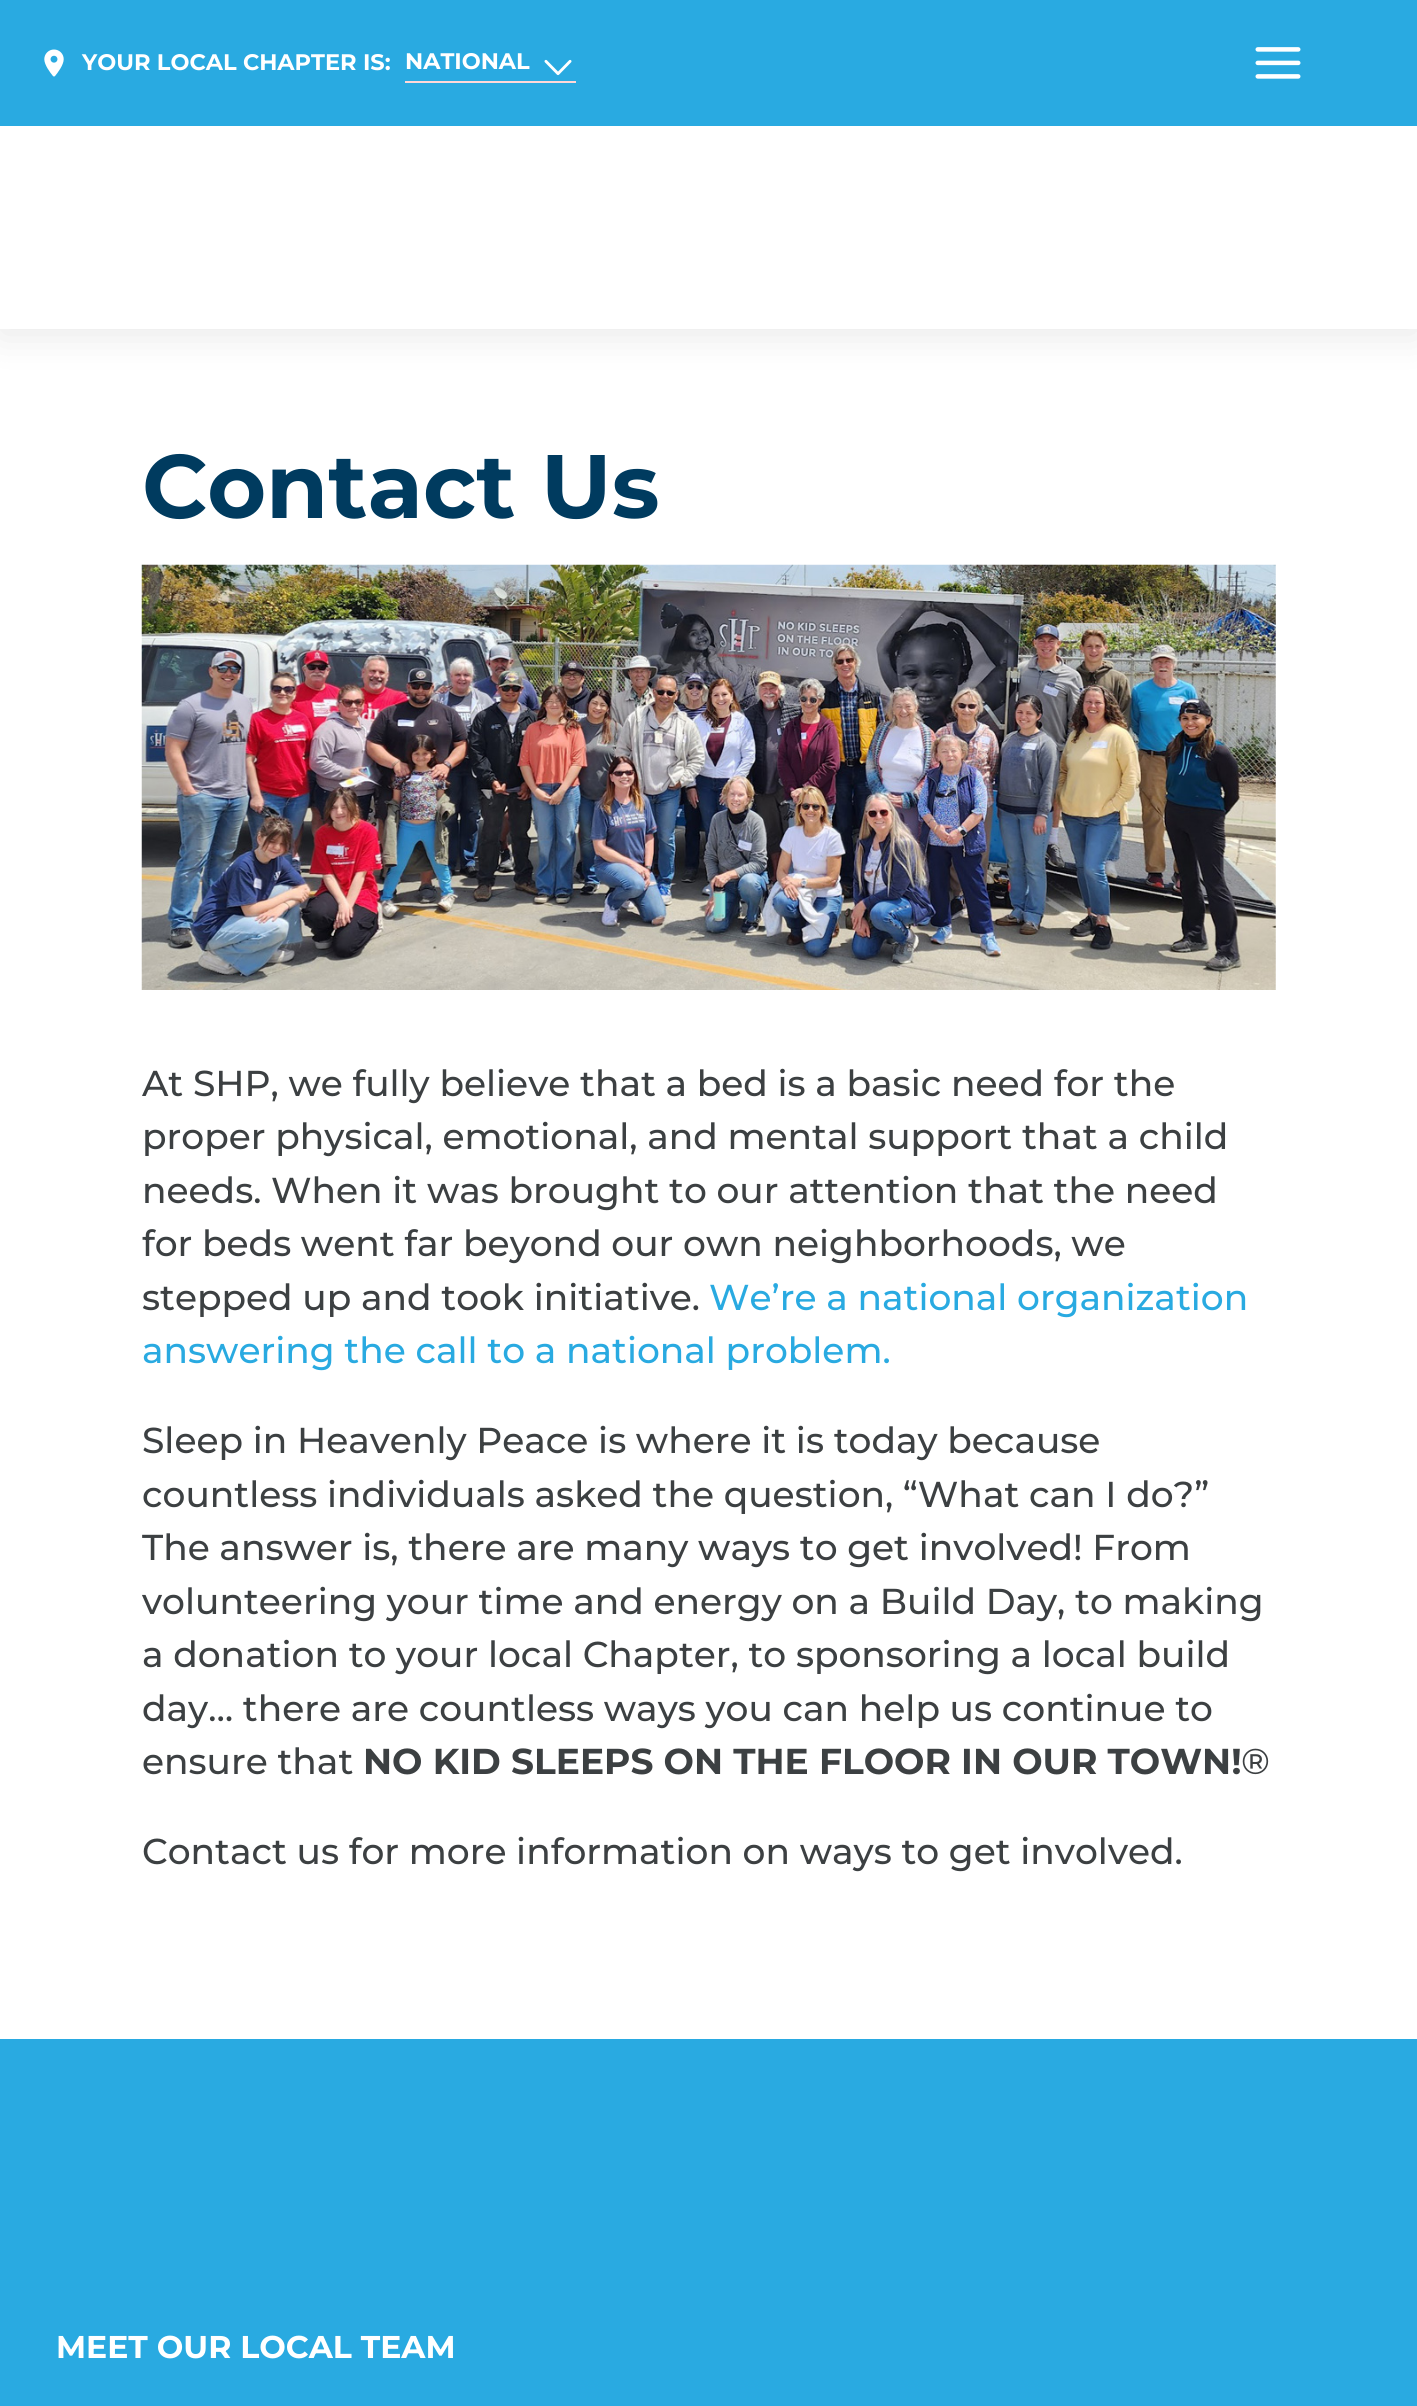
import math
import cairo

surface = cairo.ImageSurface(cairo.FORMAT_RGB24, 1417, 2406)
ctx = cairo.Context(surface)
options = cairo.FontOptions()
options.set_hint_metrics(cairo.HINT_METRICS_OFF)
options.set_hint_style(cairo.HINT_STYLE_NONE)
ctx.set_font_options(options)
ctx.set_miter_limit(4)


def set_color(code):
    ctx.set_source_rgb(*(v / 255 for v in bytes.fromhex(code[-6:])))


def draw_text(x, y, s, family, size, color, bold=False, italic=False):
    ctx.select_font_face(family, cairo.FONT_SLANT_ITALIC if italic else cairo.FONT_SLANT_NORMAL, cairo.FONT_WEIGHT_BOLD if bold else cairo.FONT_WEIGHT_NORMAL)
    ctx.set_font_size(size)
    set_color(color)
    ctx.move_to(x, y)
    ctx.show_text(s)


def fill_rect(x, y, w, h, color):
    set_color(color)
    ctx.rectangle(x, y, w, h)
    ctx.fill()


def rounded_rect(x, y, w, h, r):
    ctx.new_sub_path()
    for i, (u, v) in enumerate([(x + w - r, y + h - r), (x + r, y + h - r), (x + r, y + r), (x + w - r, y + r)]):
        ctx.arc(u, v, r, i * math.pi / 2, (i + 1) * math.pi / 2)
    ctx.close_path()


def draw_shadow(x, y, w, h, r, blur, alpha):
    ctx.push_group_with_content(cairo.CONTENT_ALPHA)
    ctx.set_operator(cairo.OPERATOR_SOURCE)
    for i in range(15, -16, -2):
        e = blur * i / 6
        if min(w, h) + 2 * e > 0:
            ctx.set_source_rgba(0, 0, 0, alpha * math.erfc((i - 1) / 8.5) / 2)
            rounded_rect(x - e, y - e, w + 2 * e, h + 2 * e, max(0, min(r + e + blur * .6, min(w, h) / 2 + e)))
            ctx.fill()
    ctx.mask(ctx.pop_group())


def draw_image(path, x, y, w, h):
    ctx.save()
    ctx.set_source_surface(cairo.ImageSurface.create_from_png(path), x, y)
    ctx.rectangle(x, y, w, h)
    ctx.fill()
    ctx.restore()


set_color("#ffffff")
ctx.paint()
set_color("#000000")
draw_shadow(0, 5, 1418, 328, 0, 20, 0.1)
fill_rect(0, 126, 1417, 203, "#ffffff")
fill_rect(0, 0, 1417, 126, "#29aae1")
draw_image("assets/img1.png", 44, 49, 20, 28)
draw_text(82, 70, "YOUR LOCAL CHAPTER IS:", "Montserrat Thin", 22.5, "#ffffff")
fill_rect(405, 81, 171, 2, "#ffd8d8")
draw_text(405, 69, "NATIONAL", "Montserrat Thin", 22.5, "#ffffff")
draw_image("assets/img2.png", 544, 59, 28, 17)
draw_image("assets/img3.png", 1255, 47, 46, 32)
draw_text(142, 518, "Contact Us", "Montserrat Thin", 90, "#003b5f")
draw_image("assets/img4.png", 141, 564, 1135, 426)
draw_text(142, 1096, "At SHP, we fully believe that a bed is a basic need for the", "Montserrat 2 Thin", 36, "#3c4042")
draw_text(142, 1149, "proper physical, emotional, and mental support that a child", "Montserrat 2 Thin", 36, "#3c4042")
draw_text(142, 1203, "needs. When it was brought to our attention that the need", "Montserrat 2 Thin", 36, "#3c4042")
draw_text(142, 1256, "for beds went far beyond our own neighborhoods, we", "Montserrat 2 Thin", 36, "#3c4042")
draw_text(142, 1310, "stepped up and took initiative.", "Montserrat 2 Thin", 36, "#3c4042")
draw_text(709, 1310, "We’re a national organization", "Montserrat 2 Thin", 36, "#29aae1")
draw_text(142, 1363, "answering the call to a national problem.", "Montserrat 2 Thin", 36, "#29aae1")
draw_text(142, 1453, "Sleep in Heavenly Peace is where it is today because", "Montserrat 2 Thin", 36, "#3c4042")
draw_text(142, 1507, "countless individuals asked the question, “What can I do?”", "Montserrat 2 Thin", 36, "#3c4042")
draw_text(142, 1560, "The answer is, there are many ways to get involved! From", "Montserrat 2 Thin", 36, "#3c4042")
draw_text(142, 1614, "volunteering your time and energy on a Build Day, to making", "Montserrat 2 Thin", 36, "#3c4042")
draw_text(142, 1667, "a donation to your local Chapter, to sponsoring a local build", "Montserrat 2 Thin", 36, "#3c4042")
draw_text(142, 1721, "day… there are countless ways you can help us continue to", "Montserrat 2 Thin", 36, "#3c4042")
draw_text(142, 1774, "ensure that", "Montserrat 2 Thin", 36, "#3c4042")
draw_text(363, 1774, "NO KID SLEEPS ON THE FLOOR IN OUR TOWN!", "Montserrat Thin", 36, "#3c4042")
draw_text(1241, 1774, "®", "Montserrat 2 Thin", 36, "#3c4042")
draw_text(142, 1864, "Contact us for more information on ways to get involved.", "Montserrat 2 Thin", 36, "#3c4042")
fill_rect(0, 2039, 1417, 367, "#29aae1")
draw_text(56, 2358, "MEET OUR LOCAL TEAM", "Montserrat Thin", 31.5, "#ffffff")
surface.write_to_png("output.png")
